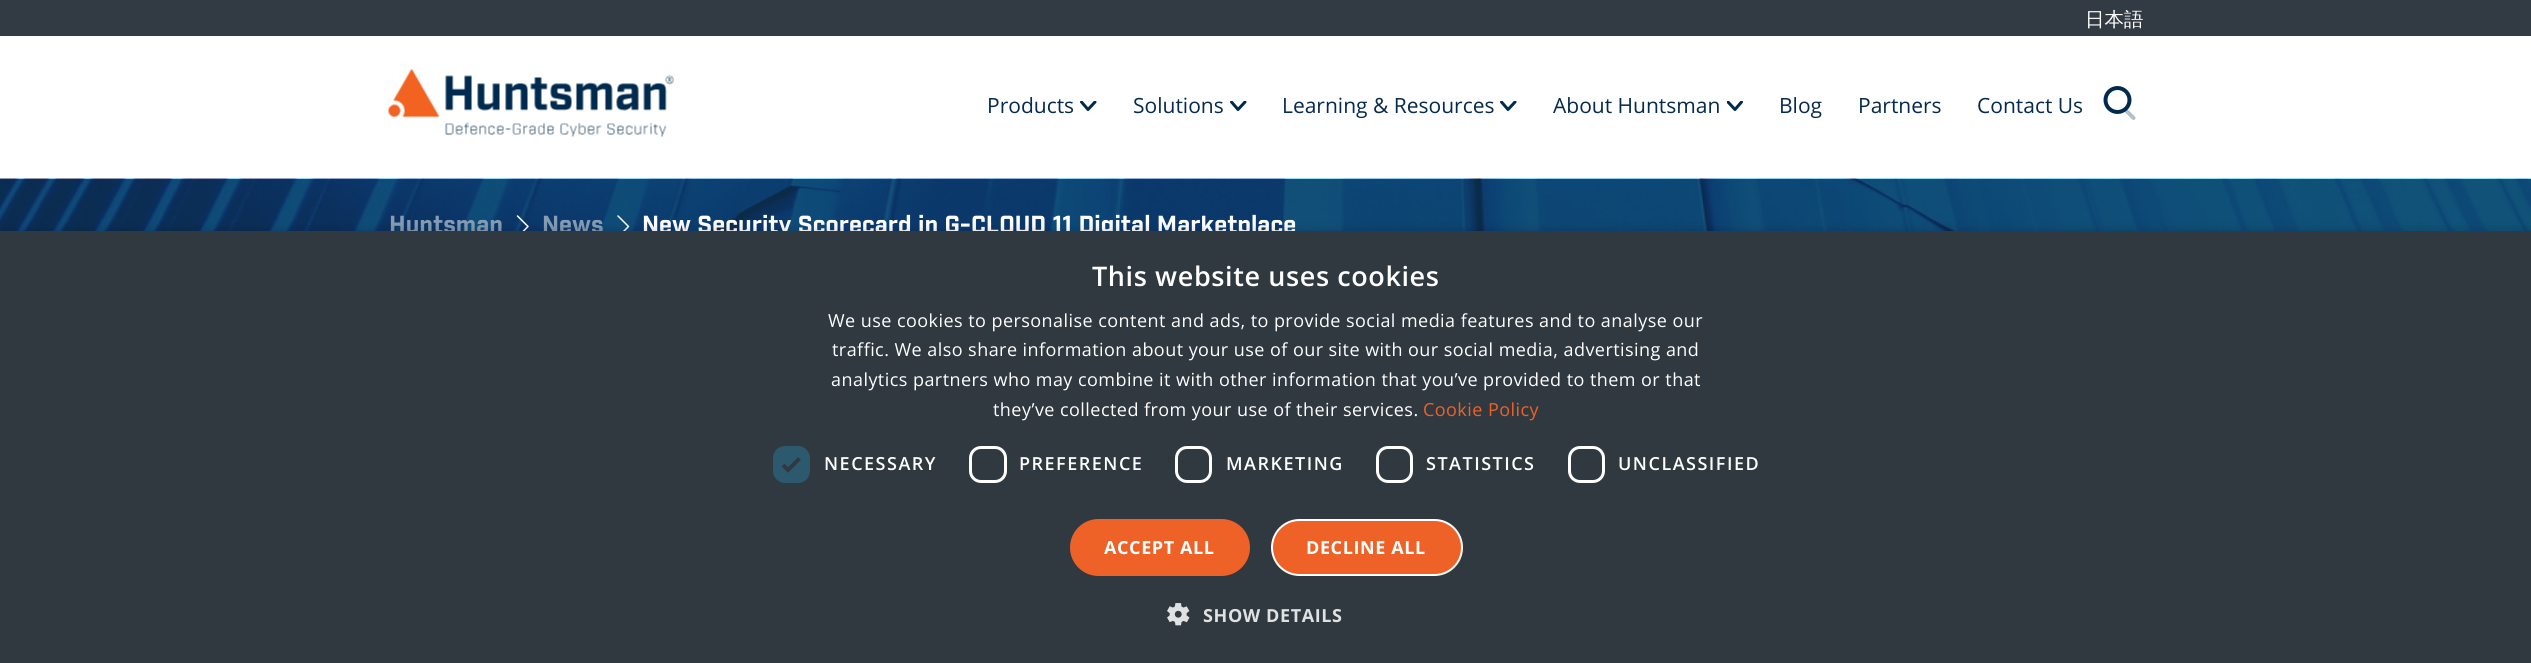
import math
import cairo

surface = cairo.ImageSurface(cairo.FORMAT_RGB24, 2531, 663)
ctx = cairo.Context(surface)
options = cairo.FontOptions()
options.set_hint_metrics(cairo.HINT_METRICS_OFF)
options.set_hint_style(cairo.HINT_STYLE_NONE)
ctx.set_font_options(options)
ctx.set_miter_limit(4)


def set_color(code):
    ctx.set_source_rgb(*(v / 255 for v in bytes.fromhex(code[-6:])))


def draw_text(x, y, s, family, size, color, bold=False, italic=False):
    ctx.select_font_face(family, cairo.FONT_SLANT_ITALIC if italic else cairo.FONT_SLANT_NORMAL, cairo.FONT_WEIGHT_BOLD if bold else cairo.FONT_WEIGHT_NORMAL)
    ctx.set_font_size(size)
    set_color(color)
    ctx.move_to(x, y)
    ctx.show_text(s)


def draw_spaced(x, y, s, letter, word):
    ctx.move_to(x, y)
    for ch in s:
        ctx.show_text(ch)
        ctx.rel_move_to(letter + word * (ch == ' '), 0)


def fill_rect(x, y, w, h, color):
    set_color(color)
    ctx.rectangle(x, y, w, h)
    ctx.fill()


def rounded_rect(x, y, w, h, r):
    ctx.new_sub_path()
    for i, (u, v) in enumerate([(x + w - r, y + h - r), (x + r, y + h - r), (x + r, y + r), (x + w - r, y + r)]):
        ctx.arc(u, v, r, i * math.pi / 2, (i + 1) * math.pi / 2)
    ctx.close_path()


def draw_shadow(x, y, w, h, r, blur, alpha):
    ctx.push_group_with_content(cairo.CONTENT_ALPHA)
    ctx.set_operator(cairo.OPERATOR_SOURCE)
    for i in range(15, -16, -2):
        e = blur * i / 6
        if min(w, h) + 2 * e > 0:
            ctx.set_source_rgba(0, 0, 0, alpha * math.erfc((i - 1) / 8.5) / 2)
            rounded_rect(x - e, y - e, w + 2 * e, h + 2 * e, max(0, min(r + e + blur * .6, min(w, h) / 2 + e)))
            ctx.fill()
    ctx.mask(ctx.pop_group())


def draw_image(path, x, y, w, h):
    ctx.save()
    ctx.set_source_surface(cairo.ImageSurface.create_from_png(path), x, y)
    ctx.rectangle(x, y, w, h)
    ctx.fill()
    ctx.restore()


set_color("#ffffff")
ctx.paint()
fill_rect(0, 0, 2531, 36, "#323b44")
draw_text(2085, 26, "日本語", "WenQuanYi Zen Hei Medium", 19.5, "#ffffff")
draw_image("assets/img1.png", 388, 69, 286, 68)
draw_text(987, 113, "Products", "Open Sans", 21, "#062a4e")
ctx.save()
ctx.rectangle(1080, 101, 17, 10)
ctx.clip()
ctx.new_path()
ctx.move_to(1095, 102)
ctx.line_to(1088, 109.5)
ctx.line_to(1081.5, 102)
set_color("#002b4e")
ctx.set_line_width(3)
ctx.set_line_cap(cairo.LINE_CAP_ROUND)
ctx.set_line_join(cairo.LINE_JOIN_ROUND)
ctx.stroke()
ctx.restore()
draw_text(1133, 113, "Solutions", "Open Sans", 21, "#062a4e")
ctx.save()
ctx.rectangle(1230, 101, 17, 10)
ctx.clip()
ctx.new_path()
ctx.move_to(1245, 102)
ctx.line_to(1238, 109.5)
ctx.line_to(1231.5, 102)
set_color("#002b4e")
ctx.set_line_width(3)
ctx.set_line_cap(cairo.LINE_CAP_ROUND)
ctx.set_line_join(cairo.LINE_JOIN_ROUND)
ctx.stroke()
ctx.restore()
draw_text(1282, 113, "Learning & Resources", "Open Sans", 21, "#062a4e")
ctx.save()
ctx.rectangle(1500, 101, 17, 10)
ctx.clip()
ctx.new_path()
ctx.move_to(1515, 102)
ctx.line_to(1508, 109.5)
ctx.line_to(1501.5, 102)
set_color("#002b4e")
ctx.set_line_width(3)
ctx.set_line_cap(cairo.LINE_CAP_ROUND)
ctx.set_line_join(cairo.LINE_JOIN_ROUND)
ctx.stroke()
ctx.restore()
draw_text(1553, 113, "About Huntsman", "Open Sans", 21, "#062a4e")
ctx.save()
ctx.rectangle(1727, 101, 16, 10)
ctx.clip()
ctx.new_path()
ctx.move_to(1741.5, 102)
ctx.line_to(1735, 109.5)
ctx.line_to(1728, 102)
set_color("#002b4e")
ctx.set_line_width(3)
ctx.set_line_cap(cairo.LINE_CAP_ROUND)
ctx.set_line_join(cairo.LINE_JOIN_ROUND)
ctx.stroke()
ctx.restore()
draw_text(1779, 113, "Blog", "Open Sans", 21, "#062a4e")
draw_text(1858, 113, "Partners", "Open Sans", 21, "#062a4e")
draw_text(1977, 113, "Contact Us", "Open Sans", 21, "#062a4e")
draw_image("assets/img2.png", 2103, 86, 33, 34)
draw_image("assets/img3.png", 0, 178, 2531, 53)
draw_text(389, 233, "Huntsman", "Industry", 24, "#859cb4", bold=True)
ctx.new_path()
ctx.move_to(517.5, 216)
ctx.line_to(528, 226.5)
ctx.line_to(517.5, 237)
set_color("#ffffff")
ctx.set_line_width(1.5)
ctx.set_line_cap(cairo.LINE_CAP_ROUND)
ctx.set_line_join(cairo.LINE_JOIN_ROUND)
ctx.stroke()
draw_text(542, 233, "News", "Industry", 24, "#859cb4", bold=True)
ctx.new_path()
ctx.move_to(618, 216)
ctx.line_to(628.5, 226.5)
ctx.line_to(618, 237)
set_color("#ffffff")
ctx.stroke()
draw_text(642, 233, "New Security Scorecard in G-CLOUD 11 Digital Marketplace", "Industry", 24, "#ffffff", bold=True)
set_color("#000000")
draw_shadow(2, 234, 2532, 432, 0, 6, 0.35)
fill_rect(0, 231, 2531, 432, "#303840")
ctx.select_font_face("Open Sans SemiBold")
ctx.set_font_size(27)
set_color("#ffffff")
draw_spaced(1092, 286, "This website uses cookies", 0.6, 0)
ctx.select_font_face("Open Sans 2")
ctx.set_font_size(18)
draw_spaced(828, 327, "We use cookies to personalise content and ads, to provide social media features and to analyse our", 0.45, 0)
draw_spaced(832, 356, "traffic. We also share information about your use of our site with our social media, advertising and", 0.45, 0)
draw_spaced(831, 386, "analytics partners who may combine it with other information that you’ve provided to them or that", 0.45, 0)
draw_spaced(993, 416, "they’ve collected from your use of their services.", 0.45, 0)
set_color("#ee6227")
draw_spaced(1423, 416, "Cookie Policy", 0.45, 0)
set_color("#2c596e")
rounded_rect(773, 446, 37, 37, 12)
ctx.fill()
ctx.new_path()
ctx.move_to(783, 465)
ctx.line_to(788, 470)
ctx.line_to(799.5, 458.5)
set_color("#303840")
ctx.set_line_width(3.9)
ctx.set_line_cap(cairo.LINE_CAP_BUTT)
ctx.set_line_join(cairo.LINE_JOIN_MITER)
ctx.stroke()
ctx.select_font_face("Open Sans SemiBold")
set_color("#ffffff")
draw_spaced(824, 470, "NECESSARY", 1.5, 0)
rounded_rect(970.5, 447.5, 35, 34, 10.5)
ctx.set_line_width(3)
ctx.stroke()
draw_spaced(1019, 470, "PREFERENCE", 1.5, 0)
rounded_rect(1176.5, 447.5, 34, 34, 10.5)
ctx.stroke()
draw_spaced(1226, 470, "MARKETING", 1.5, 0)
rounded_rect(1377.5, 447.5, 34, 34, 10.5)
ctx.stroke()
draw_spaced(1426, 470, "STATISTICS", 1.5, 0)
rounded_rect(1569.5, 447.5, 34, 34, 10.5)
ctx.stroke()
draw_spaced(1618, 470, "UNCLASSIFIED", 1.5, 0)
set_color("#ee6227")
rounded_rect(1070, 519, 180, 57, 28.5)
ctx.fill()
ctx.select_font_face("Open Sans", cairo.FONT_SLANT_NORMAL, cairo.FONT_WEIGHT_BOLD)
set_color("#ffffff")
draw_spaced(1104, 554, "ACCEPT ALL", 0.6, 0)
set_color("#ee6227")
rounded_rect(1272, 520, 190, 55, 27.5)
ctx.fill_preserve()
set_color("#ffffff")
ctx.set_line_width(2)
ctx.stroke()
draw_spaced(1306, 554, "DECLINE ALL", 0.6, 0)
draw_image("assets/img4.png", 1167, 603, 23, 23)
set_color("#e0e1e2")
draw_spaced(1203, 622, "SHOW DETAILS", 0.6, 0)
surface.write_to_png("output.png")
